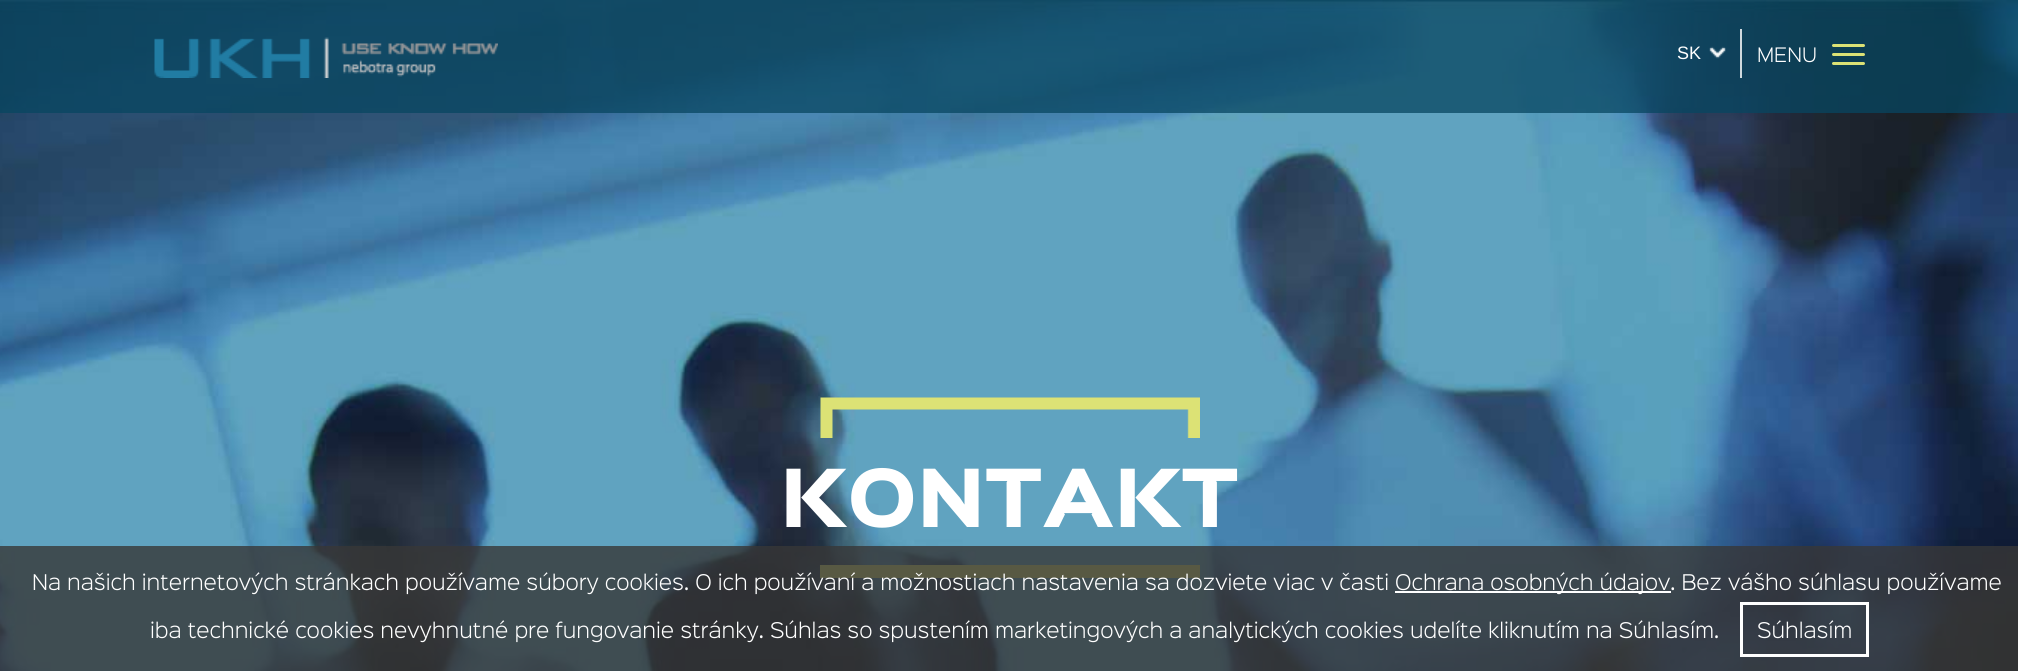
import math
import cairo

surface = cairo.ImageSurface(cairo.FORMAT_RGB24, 2018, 671)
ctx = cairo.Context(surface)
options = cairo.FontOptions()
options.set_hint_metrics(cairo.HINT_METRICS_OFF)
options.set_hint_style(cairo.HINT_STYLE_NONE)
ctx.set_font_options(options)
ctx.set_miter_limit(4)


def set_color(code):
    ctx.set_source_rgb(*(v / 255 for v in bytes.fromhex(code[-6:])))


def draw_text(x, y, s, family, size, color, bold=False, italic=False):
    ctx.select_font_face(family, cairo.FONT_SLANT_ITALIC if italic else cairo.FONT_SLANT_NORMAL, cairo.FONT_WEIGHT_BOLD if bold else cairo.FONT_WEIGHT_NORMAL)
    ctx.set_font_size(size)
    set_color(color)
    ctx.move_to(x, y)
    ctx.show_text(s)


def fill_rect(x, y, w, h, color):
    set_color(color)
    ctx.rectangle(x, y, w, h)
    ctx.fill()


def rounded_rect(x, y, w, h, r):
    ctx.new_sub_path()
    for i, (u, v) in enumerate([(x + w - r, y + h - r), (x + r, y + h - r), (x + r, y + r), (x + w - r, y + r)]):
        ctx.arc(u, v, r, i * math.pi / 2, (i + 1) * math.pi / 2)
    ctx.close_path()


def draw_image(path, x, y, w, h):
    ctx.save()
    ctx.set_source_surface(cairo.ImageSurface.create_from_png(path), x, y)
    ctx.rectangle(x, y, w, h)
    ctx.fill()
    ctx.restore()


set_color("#ffffff")
ctx.paint()
draw_image("assets/img1.png", 0, 0, 2018, 671)
ctx.set_source_rgba(0.031, 0.275, 0.38, 0.75)
ctx.rectangle(0, 0, 2018, 113)
ctx.fill()
draw_image("assets/img2.png", 1709, 46, 17, 13)
draw_text(1677, 59, "SK", "Liberation Sans", 18, "#ffffff")
draw_image("assets/img3.png", 154, 37, 344, 41)
set_color("#dce275")
rounded_rect(1832, 44, 33, 3, 1.5)
ctx.fill()
fill_rect(1740, 29, 2, 49, "#cfd9de")
draw_text(1757, 62, "MENU", "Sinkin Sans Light", 18, "#ffffff")
set_color("#dce275")
rounded_rect(1832, 53, 33, 3, 1.5)
ctx.fill()
rounded_rect(1832, 62, 33, 3, 1.5)
ctx.fill()
draw_image("assets/img4.png", 820, 397, 380, 41)
draw_text(780, 527, "KONTAKT", "Sinkin Sans Black", 72, "#ffffff")
fill_rect(820, 565, 380, 13, "#dce275")
ctx.set_source_rgba(0.216, 0.216, 0.216, 0.8)
ctx.rectangle(0, 546, 2018, 125)
ctx.fill()
draw_text(32, 590, "Na našich internetových stránkach používame súbory cookies. O ich používaní a možnostiach nastavenia sa dozviete viac v časti", "Sinkin Sans Light", 19.5, "#ffffff")
fill_rect(1395, 591, 276, 2, "#ffffff")
draw_text(1395, 590, "Ochrana osobných údajov. Bez vášho súhlasu používame", "Sinkin Sans Light", 19.5, "#ffffff")
draw_text(150, 638, "iba technické cookies nevyhnutné pre fungovanie stránky. Súhlas so spustením marketingových a analytických cookies udelíte kliknutím na Súhlasím.", "Sinkin Sans Light", 19.5, "#ffffff")
ctx.rectangle(1741.5, 603.5, 126, 52)
ctx.set_line_width(3)
ctx.stroke()
draw_text(1757, 638, "Súhlasím", "Sinkin Sans Light", 19.5, "#ffffff")
surface.write_to_png("output.png")
